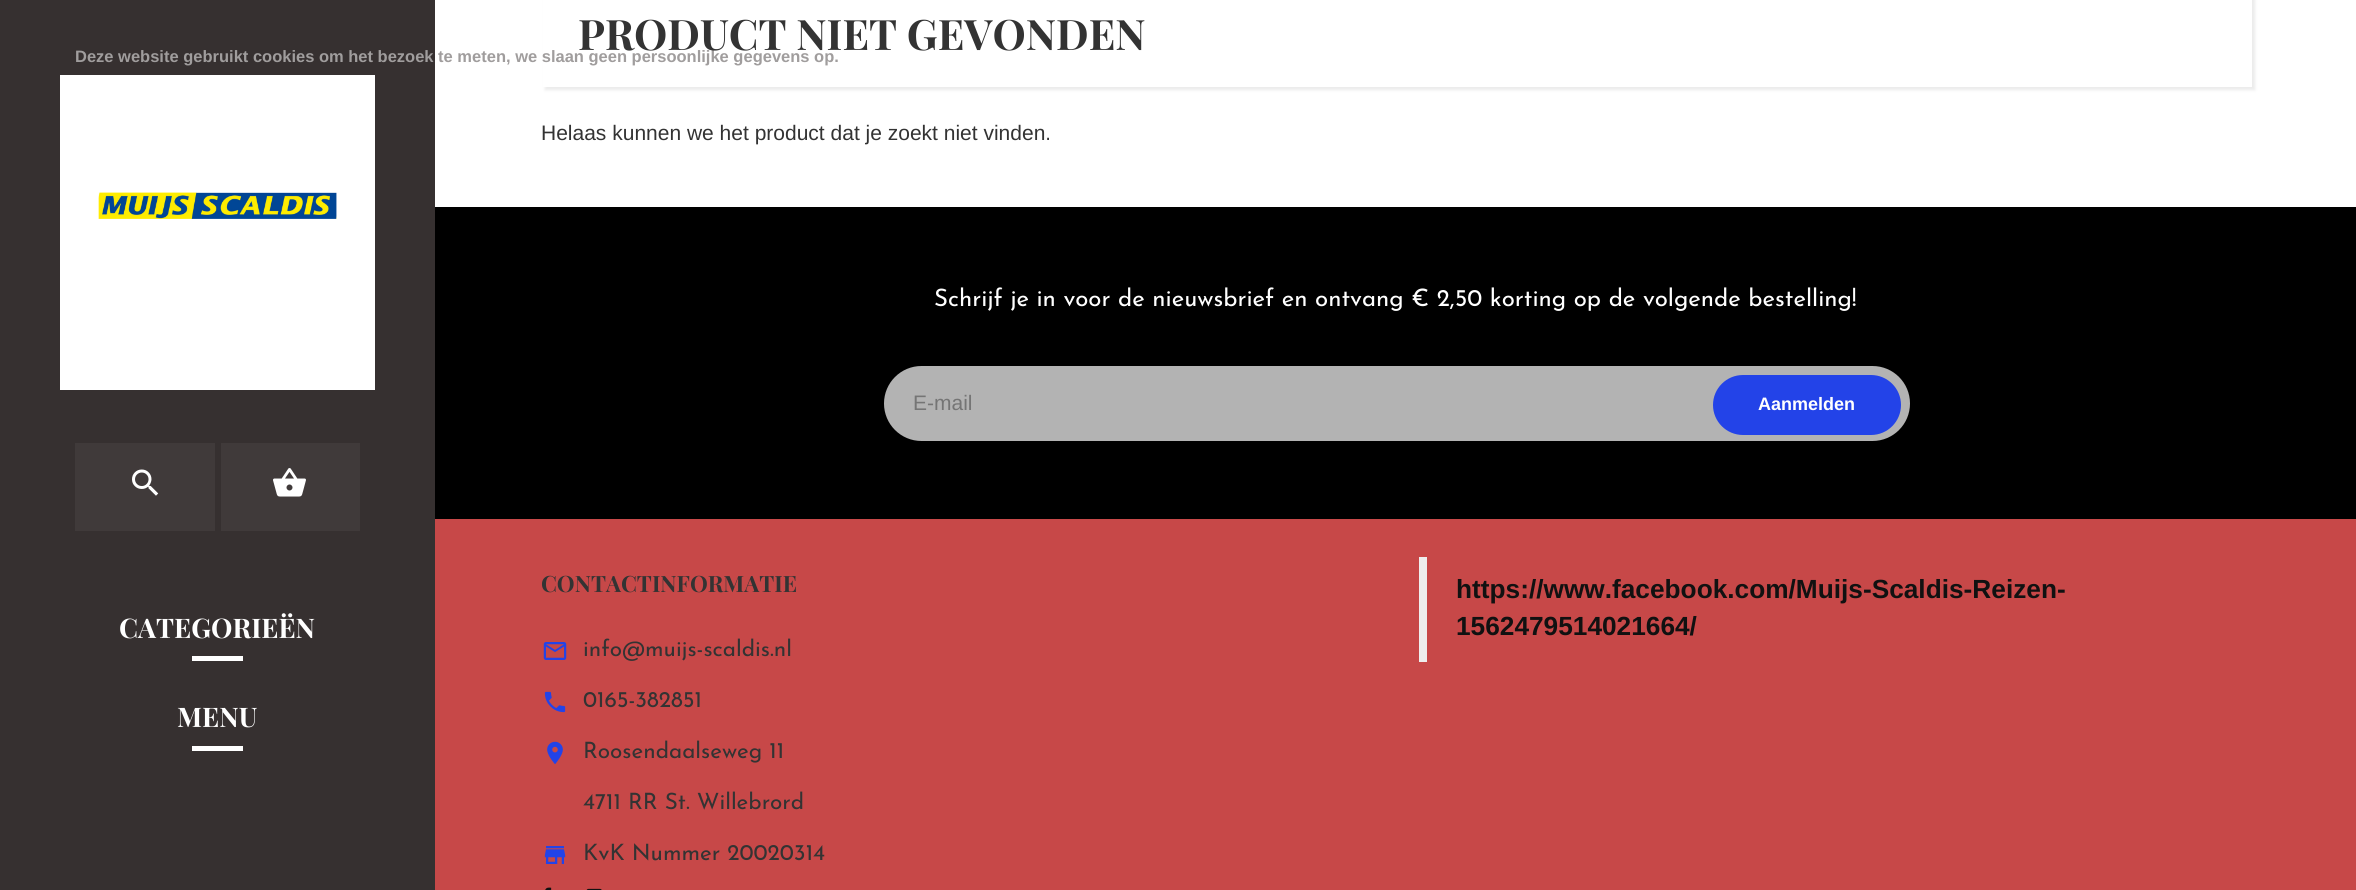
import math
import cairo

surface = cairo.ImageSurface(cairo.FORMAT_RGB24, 2356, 890)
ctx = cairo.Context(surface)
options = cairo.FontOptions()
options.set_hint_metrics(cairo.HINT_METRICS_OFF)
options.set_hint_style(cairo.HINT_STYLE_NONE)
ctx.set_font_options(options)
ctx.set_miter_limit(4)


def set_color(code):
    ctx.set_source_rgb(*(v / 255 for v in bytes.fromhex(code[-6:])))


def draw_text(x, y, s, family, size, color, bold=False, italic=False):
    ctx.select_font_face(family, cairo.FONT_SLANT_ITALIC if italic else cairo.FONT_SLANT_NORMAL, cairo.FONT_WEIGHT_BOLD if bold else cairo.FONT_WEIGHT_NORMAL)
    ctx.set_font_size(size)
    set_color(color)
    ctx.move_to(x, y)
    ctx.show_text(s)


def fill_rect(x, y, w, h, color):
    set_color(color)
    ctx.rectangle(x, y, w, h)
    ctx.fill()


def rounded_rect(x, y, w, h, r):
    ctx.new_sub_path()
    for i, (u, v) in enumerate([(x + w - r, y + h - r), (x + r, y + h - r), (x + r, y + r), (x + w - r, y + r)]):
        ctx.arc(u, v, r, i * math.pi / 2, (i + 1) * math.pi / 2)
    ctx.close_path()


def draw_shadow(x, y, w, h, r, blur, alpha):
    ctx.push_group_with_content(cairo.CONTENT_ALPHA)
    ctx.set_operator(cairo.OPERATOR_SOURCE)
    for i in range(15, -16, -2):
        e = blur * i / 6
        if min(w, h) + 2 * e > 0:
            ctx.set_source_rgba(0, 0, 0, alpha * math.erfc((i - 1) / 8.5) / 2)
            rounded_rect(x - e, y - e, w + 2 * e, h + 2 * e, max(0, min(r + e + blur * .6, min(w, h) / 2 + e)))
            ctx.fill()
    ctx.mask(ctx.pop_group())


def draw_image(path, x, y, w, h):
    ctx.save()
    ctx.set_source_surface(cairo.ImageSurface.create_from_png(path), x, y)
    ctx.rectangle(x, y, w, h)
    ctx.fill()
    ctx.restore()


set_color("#ffffff")
ctx.paint()
set_color("#d7d7d7")
draw_shadow(545, -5, 1710, 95, 0, 1.5, 0.5)
fill_rect(543, 0, 1709, 87, "#ffffff")
fill_rect(0, 0, 435, 890, "#363030")
draw_text(75, 62, "Deze website gebruikt cookies om het bezoek te meten, we slaan geen persoonlijke gegevens op.", "Liberation Sans", 16.5, "#a09d9d", bold=True)
draw_text(578, 50, "PRODUCT NIET GEVONDEN", "Playfair Display", 42, "#333333", bold=True)
draw_text(541, 140, "Helaas kunnen we het product dat je zoekt niet vinden.", "Liberation Sans", 21, "#333333")
fill_rect(435, 207, 1921, 312, "#000000")
draw_text(934, 306, "Schrijf je in voor de nieuwsbrief en ontvang € 2,50 korting op de volgende bestelling!", "Josefin Sans", 24, "#ffffff")
set_color("#b3b3b3")
rounded_rect(884, 366, 1026, 75, 37.5)
ctx.fill()
draw_text(913, 410, "E-mail", "Liberation Sans", 21, "#757575")
set_color("#2343e8")
rounded_rect(1713, 375, 188, 60, 30)
ctx.fill()
draw_text(1758, 410, "Aanmelden", "Liberation Sans", 18, "#ffffff", bold=True)
draw_image("assets/img1.png", 60, 75, 315, 315)
fill_rect(75, 443, 140, 88, "#403a3a")
draw_image("assets/img2.png", 132, 469, 27, 27)
fill_rect(221, 443, 139, 88, "#403a3a")
draw_image("assets/img3.png", 273, 468, 33, 29)
draw_text(119, 638, "CATEGORIEËN", "Playfair Display", 27, "#ffffff", bold=True)
fill_rect(192, 656, 51, 5, "#ffffff")
draw_text(177, 727, "MENU", "Playfair Display", 27, "#ffffff", bold=True)
fill_rect(192, 746, 51, 5, "#ffffff")
fill_rect(435, 519, 1921, 371, "#c74848")
draw_text(541, 592, "CONTACTINFORMATIE", "Playfair Display", 22.5, "#333333", bold=True)
draw_image("assets/img4.png", 543, 642, 24, 18)
draw_text(583, 656, "info@muijs-scaldis.nl", "Josefin Sans", 22.5, "#333333")
draw_image("assets/img5.png", 544, 691, 22, 22)
draw_text(583, 707, "0165-382851", "Josefin Sans", 22.5, "#333333")
draw_image("assets/img6.png", 547, 741, 16, 23)
draw_text(583, 758, "Roosendaalseweg 11", "Josefin Sans", 22.5, "#333333")
draw_text(583, 809, "4711 RR St. Willebrord", "Josefin Sans", 22.5, "#333333")
draw_image("assets/img7.png", 544, 846, 22, 18)
draw_text(583, 860, "KvK Nummer 20020314", "Josefin Sans", 22.5, "#333333")
draw_image("assets/img8.png", 545, 887, 7, 3)
draw_image("assets/img9.png", 586, 888, 16, 2)
fill_rect(1419, 557, 8, 105, "#eeeeee")
draw_text(1456, 598, "https://www.facebook.com/Muijs-Scaldis-Reizen-", "Liberation Sans", 26.25, "#111111", bold=True)
draw_text(1456, 635, "1562479514021664/", "Liberation Sans", 26.25, "#111111", bold=True)
surface.write_to_png("output.png")
